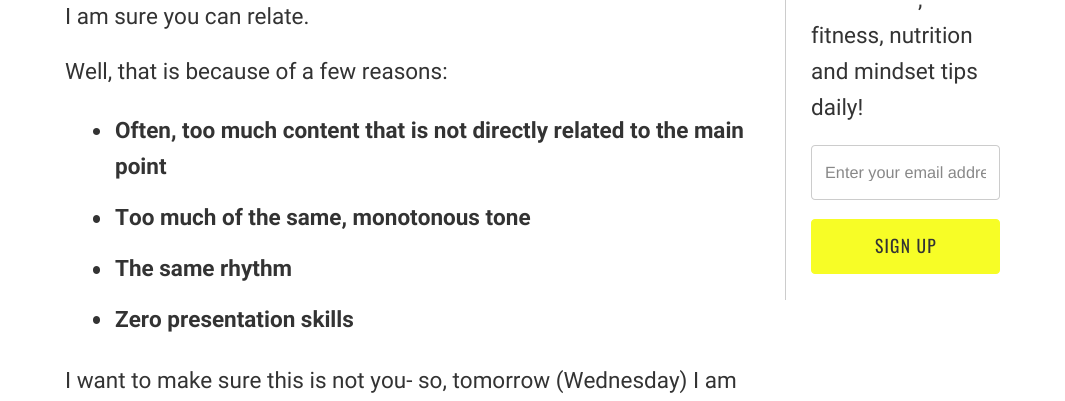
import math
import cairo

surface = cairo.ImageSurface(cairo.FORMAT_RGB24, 1065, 401)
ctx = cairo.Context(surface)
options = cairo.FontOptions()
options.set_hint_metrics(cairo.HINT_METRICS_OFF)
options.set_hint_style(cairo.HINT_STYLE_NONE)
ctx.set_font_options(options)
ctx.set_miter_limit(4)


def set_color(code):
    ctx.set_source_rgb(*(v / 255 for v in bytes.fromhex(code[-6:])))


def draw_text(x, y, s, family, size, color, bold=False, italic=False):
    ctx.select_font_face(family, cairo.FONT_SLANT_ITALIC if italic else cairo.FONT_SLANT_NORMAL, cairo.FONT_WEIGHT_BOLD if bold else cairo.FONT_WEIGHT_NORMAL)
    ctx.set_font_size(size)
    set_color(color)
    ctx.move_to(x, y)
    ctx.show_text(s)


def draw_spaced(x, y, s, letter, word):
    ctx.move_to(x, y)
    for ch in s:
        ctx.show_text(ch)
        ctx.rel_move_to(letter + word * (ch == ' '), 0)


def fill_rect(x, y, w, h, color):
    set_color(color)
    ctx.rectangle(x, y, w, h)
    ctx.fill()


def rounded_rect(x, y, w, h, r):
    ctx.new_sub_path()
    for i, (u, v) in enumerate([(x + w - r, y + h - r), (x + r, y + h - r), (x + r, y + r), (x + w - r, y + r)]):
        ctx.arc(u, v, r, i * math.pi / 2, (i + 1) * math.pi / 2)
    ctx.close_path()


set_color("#ffffff")
ctx.paint()
draw_text(65, 24, "I am sure you can relate.", "Roboto", 22.5, "#333333")
draw_text(65, 79, "Well, that is because of a few reasons:", "Roboto", 22.5, "#333333")
ctx.new_path()
ctx.arc(96.5, 131.5, 3.5, 0, 2 * math.pi)
ctx.fill()
draw_text(115, 138, "Often, too much content that is not directly related to the main", "Roboto", 22.5, "#333333", bold=True)
draw_text(115, 174, "point", "Roboto", 22.5, "#333333", bold=True)
rounded_rect(93, 215, 7, 8, 3.5)
ctx.fill()
draw_text(115, 225, "Too much of the same, monotonous tone", "Roboto", 22.5, "#333333", bold=True)
rounded_rect(93, 266, 7, 8, 3.5)
ctx.fill()
draw_text(115, 276, "The same rhythm", "Roboto", 22.5, "#333333", bold=True)
rounded_rect(93, 316, 7, 8, 3.5)
ctx.fill()
draw_text(115, 327, "Zero presentation skills", "Roboto", 22.5, "#333333", bold=True)
draw_text(65, 388, "I want to make sure this is not you- so, tomorrow (Wednesday) I am", "Roboto", 22.5, "#333333")
fill_rect(785, 0, 1, 300, "#cccccc")
draw_text(918, 7, ",", "Roboto", 22.5, "#333333")
draw_text(811, 43, "fitness, nutrition", "Roboto", 22.5, "#333333")
draw_text(811, 79, "and mindset tips", "Roboto", 22.5, "#333333")
draw_text(811, 115, "daily!", "Roboto", 22.5, "#333333")
rounded_rect(811.5, 145.5, 188, 54, 3.5)
set_color("#cccccc")
ctx.set_line_width(1)
ctx.stroke()
ctx.save()
ctx.rectangle(825, 163, 161, 18)
ctx.clip()
draw_text(825, 178, "Enter your email addre", "Liberation Sans", 16.25, "#888888")
ctx.restore()
set_color("#f7fd26")
rounded_rect(811.5, 219.5, 188, 54, 3.5)
ctx.fill_preserve()
ctx.stroke()
ctx.select_font_face("Oswald")
ctx.set_font_size(17.5)
set_color("#333333")
draw_spaced(875, 253, "SIGN UP", 1.25, 0)
surface.write_to_png("output.png")
